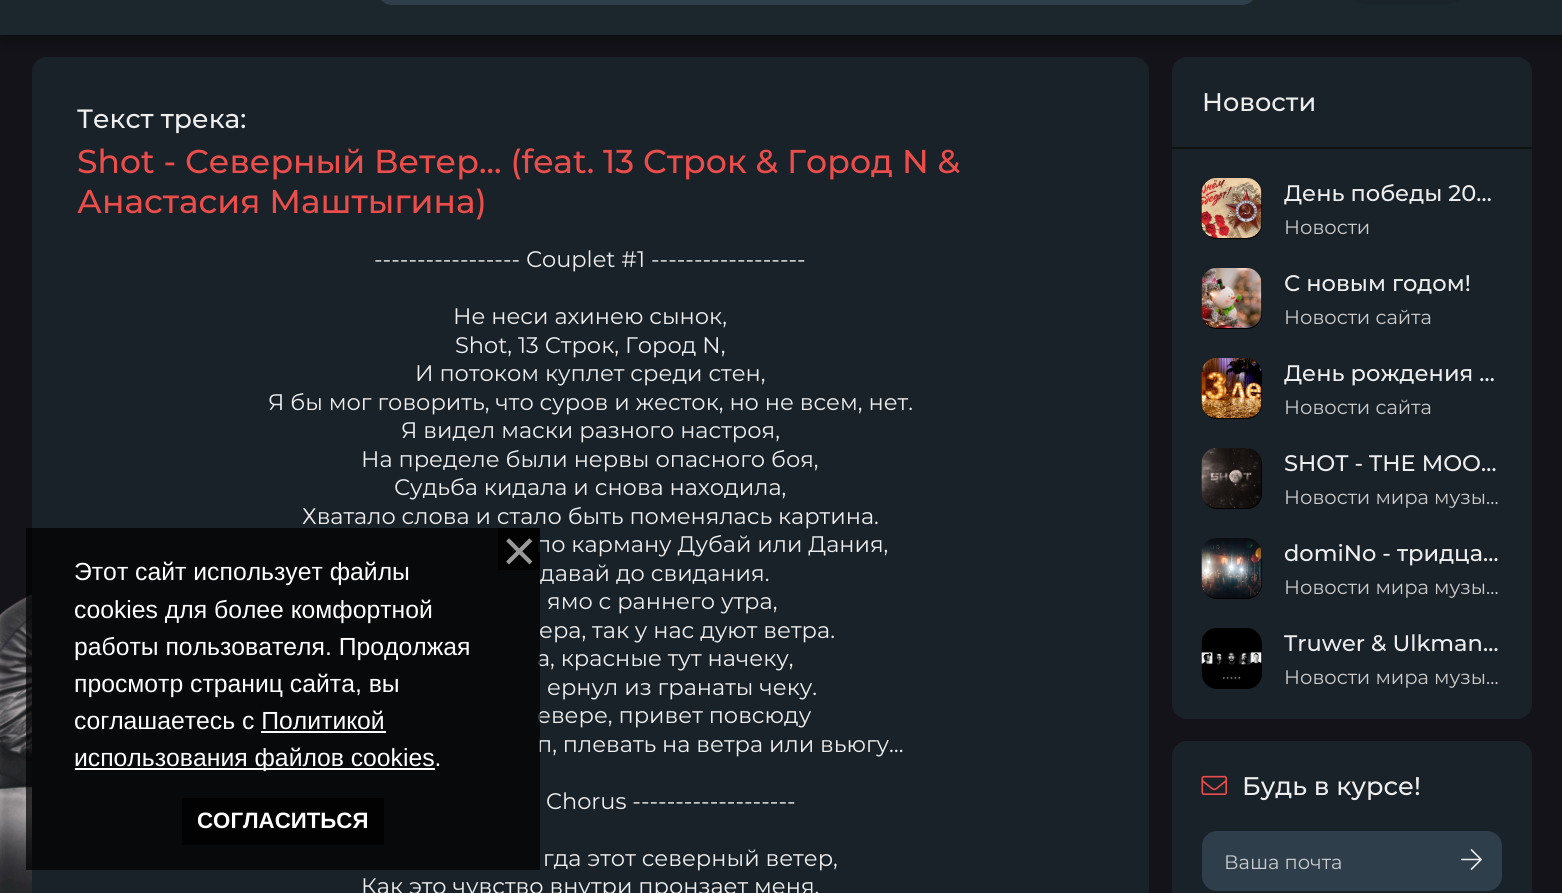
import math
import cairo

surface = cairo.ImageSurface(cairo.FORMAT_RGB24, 1562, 893)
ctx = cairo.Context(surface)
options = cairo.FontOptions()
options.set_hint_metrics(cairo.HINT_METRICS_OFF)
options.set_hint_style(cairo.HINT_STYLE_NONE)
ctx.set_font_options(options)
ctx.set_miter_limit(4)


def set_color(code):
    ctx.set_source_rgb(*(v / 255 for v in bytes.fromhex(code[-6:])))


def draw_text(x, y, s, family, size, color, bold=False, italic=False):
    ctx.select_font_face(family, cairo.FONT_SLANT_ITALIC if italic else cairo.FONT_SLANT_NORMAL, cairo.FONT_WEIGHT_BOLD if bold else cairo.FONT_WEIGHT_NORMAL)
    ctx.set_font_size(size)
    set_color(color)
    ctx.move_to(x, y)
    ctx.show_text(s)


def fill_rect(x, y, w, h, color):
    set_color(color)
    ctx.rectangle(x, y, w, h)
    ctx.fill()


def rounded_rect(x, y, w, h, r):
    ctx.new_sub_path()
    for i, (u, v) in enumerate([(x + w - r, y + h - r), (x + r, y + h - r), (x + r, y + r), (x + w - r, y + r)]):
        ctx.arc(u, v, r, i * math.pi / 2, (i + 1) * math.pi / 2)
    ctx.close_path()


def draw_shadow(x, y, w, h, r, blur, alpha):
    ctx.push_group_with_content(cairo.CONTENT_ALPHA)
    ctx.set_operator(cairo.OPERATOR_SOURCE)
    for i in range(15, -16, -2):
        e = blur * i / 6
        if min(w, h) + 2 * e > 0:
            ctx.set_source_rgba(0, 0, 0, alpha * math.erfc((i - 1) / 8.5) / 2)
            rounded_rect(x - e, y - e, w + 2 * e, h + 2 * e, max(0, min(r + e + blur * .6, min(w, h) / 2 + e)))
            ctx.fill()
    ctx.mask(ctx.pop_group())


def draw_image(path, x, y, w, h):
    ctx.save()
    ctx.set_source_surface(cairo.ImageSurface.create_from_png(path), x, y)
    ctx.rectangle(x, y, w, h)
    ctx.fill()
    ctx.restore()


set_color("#141319")
ctx.paint()
draw_image("assets/img1.png", 0, 593, 32, 300)
set_color("#000000")
draw_shadow(0, -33, 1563, 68, 0, 11, 0.6)
fill_rect(0, 0, 1562, 35, "#1c272d")
set_color("#2e3e4b")
rounded_rect(377, -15, 880, 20, 15)
ctx.fill()
set_color("#192329")
rounded_rect(1340, -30, 133, 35, 30)
ctx.fill()
set_color("#192229")
rounded_rect(32, 57, 1117, 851, 15)
ctx.fill()
draw_text(77, 128, "Текст трека:", "Montserrat Medium", 26.5, "#eeeeee")
draw_text(77, 173, "Shot - Северный Ветер... (feat. 13 Строк & Город N &", "Montserrat Medium", 33, "#eb4d4b")
draw_text(77, 213, "Анастасия Маштыгина)", "Montserrat Medium", 33, "#eb4d4b")
draw_text(374, 267, "----------------- Сouplet #1 ------------------", "Montserrat", 22.5, "#eeeeee")
draw_text(453, 324, "Не неси ахинею сынок,", "Montserrat", 22.5, "#eeeeee")
draw_text(455, 353, "Shot, 13 Строк, Город N,", "Montserrat", 22.5, "#eeeeee")
draw_text(415, 381, "И потоком куплет среди стен,", "Montserrat", 22.5, "#eeeeee")
draw_text(268, 410, "Я бы мог говорить, что суров и жесток, но не всем, нет.", "Montserrat", 22.5, "#eeeeee")
draw_text(401, 438, "Я видел маски разного настроя,", "Montserrat", 22.5, "#eeeeee")
draw_text(361, 467, "На пределе были нервы опасного боя,", "Montserrat", 22.5, "#eeeeee")
draw_text(394, 495, "Судьба кидала и снова находила,", "Montserrat", 22.5, "#eeeeee")
draw_text(302, 524, "Хватало слова и стало быть поменялась картина.", "Montserrat", 22.5, "#eeeeee")
draw_text(536, 552, "по карману Дубай или Дания,", "Montserrat", 22.5, "#eeeeee")
draw_text(540, 581, "давай до свидания.", "Montserrat", 22.5, "#eeeeee")
draw_text(547, 609, "ямо с раннего утра,", "Montserrat", 22.5, "#eeeeee")
draw_text(539, 638, "ера, так у нас дуют ветра.", "Montserrat", 22.5, "#eeeeee")
draw_text(537, 666, "а, красные тут начеку,", "Montserrat", 22.5, "#eeeeee")
draw_text(547, 695, "ернул из гранаты чеку.", "Montserrat", 22.5, "#eeeeee")
draw_text(537, 723, "евере, привет повсюду", "Montserrat", 22.5, "#eeeeee")
draw_text(537, 752, "п, плевать на ветра или вьюгу…", "Montserrat", 22.5, "#eeeeee")
draw_text(546, 809, "Chorus -------------------", "Montserrat", 22.5, "#eeeeee")
draw_text(543, 866, "гда этот северный ветер,", "Montserrat", 22.5, "#eeeeee")
draw_text(361, 894, "Как это чувство внутри пронзает меня.", "Montserrat", 22.5, "#eeeeee")
set_color("#192229")
rounded_rect(1172, 57, 360, 662, 15)
ctx.fill()
fill_rect(1172, 147, 360, 2, "#111111")
draw_text(1202, 111, "Новости", "Montserrat Medium", 25.5, "#eeeeee")
set_color("#000000")
rounded_rect(1202, 179, 60, 60, 15)
ctx.fill()
draw_image("assets/img2.png", 1201, 178, 61, 60)
draw_text(1284, 201, "День победы 20…", "Montserrat Medium", 22.5, "#eeeeee")
draw_text(1284, 234, "Новости", "Montserrat", 19.5, "#cccccc")
set_color("#000000")
rounded_rect(1202, 269, 60, 60, 15)
ctx.fill()
draw_image("assets/img3.png", 1201, 268, 61, 60)
draw_text(1284, 291, "С новым годом!", "Montserrat Medium", 22.5, "#eeeeee")
draw_text(1284, 324, "Новости сайта", "Montserrat", 19.5, "#cccccc")
set_color("#000000")
rounded_rect(1202, 359, 60, 60, 15)
ctx.fill()
draw_image("assets/img4.png", 1201, 358, 61, 60)
draw_text(1284, 381, "День рождения …", "Montserrat Medium", 22.5, "#eeeeee")
draw_text(1284, 414, "Новости сайта", "Montserrat", 19.5, "#cccccc")
set_color("#000000")
rounded_rect(1202, 449, 60, 60, 15)
ctx.fill()
draw_image("assets/img5.png", 1201, 448, 61, 60)
draw_text(1284, 471, "SHOT - THE MOO…", "Montserrat Medium", 22.5, "#eeeeee")
draw_text(1284, 504, "Новости мира музы…", "Montserrat", 19.5, "#cccccc")
set_color("#000000")
rounded_rect(1202, 539, 60, 60, 15)
ctx.fill()
draw_image("assets/img6.png", 1201, 538, 61, 60)
draw_text(1284, 561, "domiNo - тридца…", "Montserrat Medium", 22.5, "#eeeeee")
draw_text(1284, 594, "Новости мира музы…", "Montserrat", 19.5, "#cccccc")
set_color("#000000")
rounded_rect(1202, 629, 60, 60, 15)
ctx.fill()
draw_image("assets/img7.png", 1201, 628, 61, 53)
draw_text(1284, 651, "Truwer & Ulkman…", "Montserrat Medium", 22.5, "#eeeeee")
draw_text(1284, 684, "Новости мира музы…", "Montserrat", 19.5, "#cccccc")
set_color("#192229")
rounded_rect(1172, 741, 360, 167, 15)
ctx.fill()
draw_image("assets/img8.png", 1201, 775, 26, 20)
draw_text(1242, 795, "Будь в курсе!", "Montserrat Medium", 25.5, "#eeeeee")
set_color("#2e3e4b")
rounded_rect(1202, 831, 300, 60, 15)
ctx.fill()
draw_text(1224, 869, "Ваша почта", "Montserrat", 19.5, "#cccccc")
draw_image("assets/img9.png", 1461, 849, 21, 21)
ctx.set_source_rgba(0, 0, 0, 0.73)
ctx.rectangle(26, 528, 514, 342)
ctx.fill()
ctx.rectangle(498, 528, 42, 42)
ctx.fill()
draw_text(502, 571, "×", "Liberation Sans", 59, "#999999")
fill_rect(182, 798, 202, 47, "#020203")
draw_text(197, 828, "СОГЛАСИТЬСЯ", "Liberation Sans", 22.25, "#ffffff", bold=True)
draw_text(74, 580, "Этот сайт использует файлы", "Liberation Sans", 24.75, "#ffffff")
draw_text(74, 618, "cookies для более комфортной", "Liberation Sans", 24.75, "#ffffff")
draw_text(74, 655, "работы пользователя. Продолжая", "Liberation Sans", 24.75, "#ffffff")
draw_text(74, 692, "просмотр страниц сайта, вы", "Liberation Sans", 24.75, "#ffffff")
draw_text(74, 729, "соглашаетесь с Политикой", "Liberation Sans", 24.75, "#ffffff")
fill_rect(75, 768, 360, 2, "#ffffff")
draw_text(74, 766, "использования файлов cookies.", "Liberation Sans", 24.75, "#ffffff")
fill_rect(261, 731, 125, 2, "#ffffff")
surface.write_to_png("output.png")
